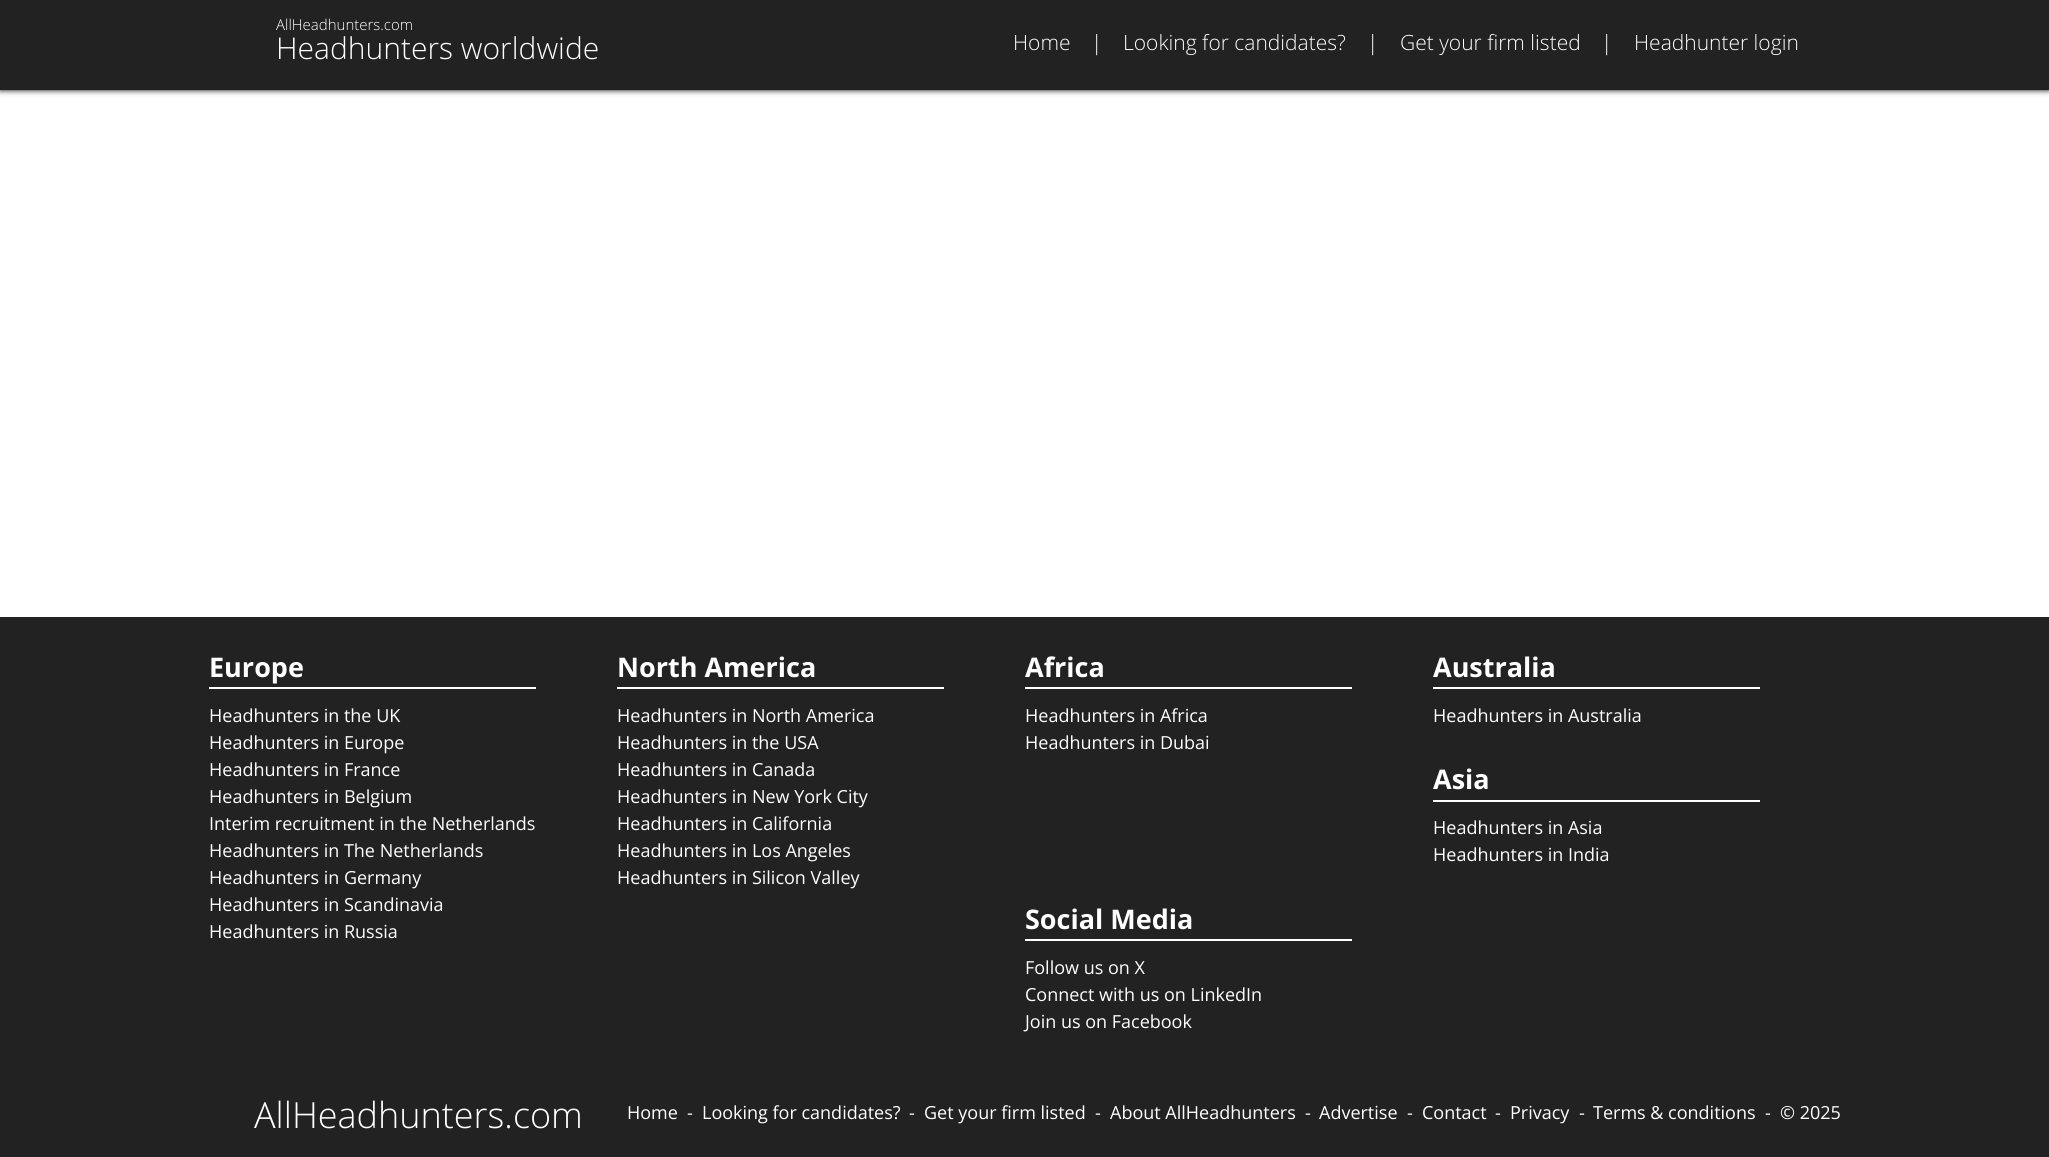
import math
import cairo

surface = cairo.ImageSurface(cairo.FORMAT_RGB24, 2049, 1157)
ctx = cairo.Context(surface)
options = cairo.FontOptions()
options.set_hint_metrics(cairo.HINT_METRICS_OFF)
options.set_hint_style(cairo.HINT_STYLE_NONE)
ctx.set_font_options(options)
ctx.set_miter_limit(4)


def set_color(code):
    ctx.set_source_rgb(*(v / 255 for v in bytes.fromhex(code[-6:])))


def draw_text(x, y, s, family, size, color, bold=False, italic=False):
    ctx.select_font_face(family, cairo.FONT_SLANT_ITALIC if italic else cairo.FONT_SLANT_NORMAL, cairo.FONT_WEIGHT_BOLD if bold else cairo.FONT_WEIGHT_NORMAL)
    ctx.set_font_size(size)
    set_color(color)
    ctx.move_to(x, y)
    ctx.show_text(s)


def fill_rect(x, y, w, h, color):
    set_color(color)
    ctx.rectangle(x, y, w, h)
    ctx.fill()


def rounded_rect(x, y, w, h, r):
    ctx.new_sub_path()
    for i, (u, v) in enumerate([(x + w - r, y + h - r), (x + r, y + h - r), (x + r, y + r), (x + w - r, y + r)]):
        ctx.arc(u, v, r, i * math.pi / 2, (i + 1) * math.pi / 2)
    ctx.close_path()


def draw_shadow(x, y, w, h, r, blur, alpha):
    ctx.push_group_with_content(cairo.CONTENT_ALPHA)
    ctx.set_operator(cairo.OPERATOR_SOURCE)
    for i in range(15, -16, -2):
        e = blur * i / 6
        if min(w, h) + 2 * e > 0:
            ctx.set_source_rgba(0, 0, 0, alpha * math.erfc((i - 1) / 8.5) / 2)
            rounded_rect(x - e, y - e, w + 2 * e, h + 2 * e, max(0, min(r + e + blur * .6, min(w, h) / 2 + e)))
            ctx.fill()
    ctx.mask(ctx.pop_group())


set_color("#ffffff")
ctx.paint()
set_color("#000000")
draw_shadow(0, 0, 2049, 90, 0, 3, 1)
fill_rect(0, 0, 2049, 90, "#222222")
draw_text(276, 30, "AllHeadhunters.com", "Open Sans Light", 15, "#ffffff")
draw_text(276, 59, "Headhunters worldwide", "Open Sans Light", 30, "#ffffff")
draw_text(1013, 50, "Home", "Open Sans Light", 21, "#ffffff")
draw_text(1091, 50, "|", "Open Sans Light", 21, "#ffffff")
draw_text(1123, 50, "Looking for candidates?", "Open Sans Light", 21, "#ffffff")
draw_text(1367, 50, "|", "Open Sans Light", 21, "#ffffff")
draw_text(1400, 50, "Get your firm listed", "Open Sans Light", 21, "#ffffff")
draw_text(1601, 50, "|", "Open Sans Light", 21, "#ffffff")
draw_text(1634, 50, "Headhunter login", "Open Sans Light", 21, "#ffffff")
fill_rect(0, 617, 2049, 540, "#222222")
fill_rect(209, 687, 327, 2, "#ffffff")
draw_text(209, 677, "Europe", "Open Sans", 27, "#ffffff", bold=True)
draw_text(209, 722, "Headhunters in the UK", "Open Sans", 18, "#ffffff")
draw_text(209, 749, "Headhunters in Europe", "Open Sans", 18, "#ffffff")
draw_text(209, 776, "Headhunters in France", "Open Sans", 18, "#ffffff")
draw_text(209, 803, "Headhunters in Belgium", "Open Sans", 18, "#ffffff")
draw_text(209, 830, "Interim recruitment in the Netherlands", "Open Sans", 18, "#ffffff")
draw_text(209, 857, "Headhunters in The Netherlands", "Open Sans", 18, "#ffffff")
draw_text(209, 884, "Headhunters in Germany", "Open Sans", 18, "#ffffff")
draw_text(209, 911, "Headhunters in Scandinavia", "Open Sans", 18, "#ffffff")
draw_text(209, 938, "Headhunters in Russia", "Open Sans", 18, "#ffffff")
fill_rect(617, 687, 327, 2, "#ffffff")
draw_text(617, 677, "North America", "Open Sans", 27, "#ffffff", bold=True)
draw_text(617, 722, "Headhunters in North America", "Open Sans", 18, "#ffffff")
draw_text(617, 749, "Headhunters in the USA", "Open Sans", 18, "#ffffff")
draw_text(617, 776, "Headhunters in Canada", "Open Sans", 18, "#ffffff")
draw_text(617, 803, "Headhunters in New York City", "Open Sans", 18, "#ffffff")
draw_text(617, 830, "Headhunters in California", "Open Sans", 18, "#ffffff")
draw_text(617, 857, "Headhunters in Los Angeles", "Open Sans", 18, "#ffffff")
draw_text(617, 884, "Headhunters in Silicon Valley", "Open Sans", 18, "#ffffff")
fill_rect(1025, 687, 327, 2, "#ffffff")
draw_text(1025, 677, "Africa", "Open Sans", 27, "#ffffff", bold=True)
draw_text(1025, 722, "Headhunters in Africa", "Open Sans", 18, "#ffffff")
draw_text(1025, 749, "Headhunters in Dubai", "Open Sans", 18, "#ffffff")
fill_rect(1433, 687, 327, 2, "#ffffff")
draw_text(1433, 677, "Australia", "Open Sans", 27, "#ffffff", bold=True)
draw_text(1433, 722, "Headhunters in Australia", "Open Sans", 18, "#ffffff")
fill_rect(1433, 800, 327, 2, "#ffffff")
draw_text(1433, 789, "Asia", "Open Sans", 27, "#ffffff", bold=True)
draw_text(1433, 834, "Headhunters in Asia", "Open Sans", 18, "#ffffff")
draw_text(1433, 861, "Headhunters in India", "Open Sans", 18, "#ffffff")
fill_rect(1025, 939, 327, 2, "#ffffff")
draw_text(1025, 929, "Social Media", "Open Sans", 27, "#ffffff", bold=True)
draw_text(1025, 974, "Follow us on X", "Open Sans", 18, "#ffffff")
draw_text(1025, 1001, "Connect with us on LinkedIn", "Open Sans", 18, "#ffffff")
draw_text(1025, 1028, "Join us on Facebook", "Open Sans", 18, "#ffffff")
draw_text(254, 1128, "AllHeadhunters.com", "Open Sans Light", 36, "#ffffff")
draw_text(627, 1119, "Home", "Open Sans", 18, "#ffffff")
draw_text(687, 1119, "-", "Open Sans", 18, "#ffffff")
draw_text(702, 1119, "Looking for candidates?", "Open Sans", 18, "#ffffff")
draw_text(909, 1119, "-", "Open Sans", 18, "#ffffff")
draw_text(924, 1119, "Get your firm listed", "Open Sans", 18, "#ffffff")
draw_text(1095, 1119, "-", "Open Sans", 18, "#ffffff")
draw_text(1110, 1119, "About AllHeadhunters", "Open Sans", 18, "#ffffff")
draw_text(1305, 1119, "-", "Open Sans", 18, "#ffffff")
draw_text(1319, 1119, "Advertise", "Open Sans", 18, "#ffffff")
draw_text(1407, 1119, "-", "Open Sans", 18, "#ffffff")
draw_text(1422, 1119, "Contact", "Open Sans", 18, "#ffffff")
draw_text(1495, 1119, "-", "Open Sans", 18, "#ffffff")
draw_text(1510, 1119, "Privacy", "Open Sans", 18, "#ffffff")
draw_text(1579, 1119, "-", "Open Sans", 18, "#ffffff")
draw_text(1593, 1119, "Terms & conditions", "Open Sans", 18, "#ffffff")
draw_text(1765, 1119, "-", "Open Sans", 18, "#ffffff")
draw_text(1780, 1119, "© 2025", "Open Sans", 18, "#ffffff")
surface.write_to_png("output.png")
